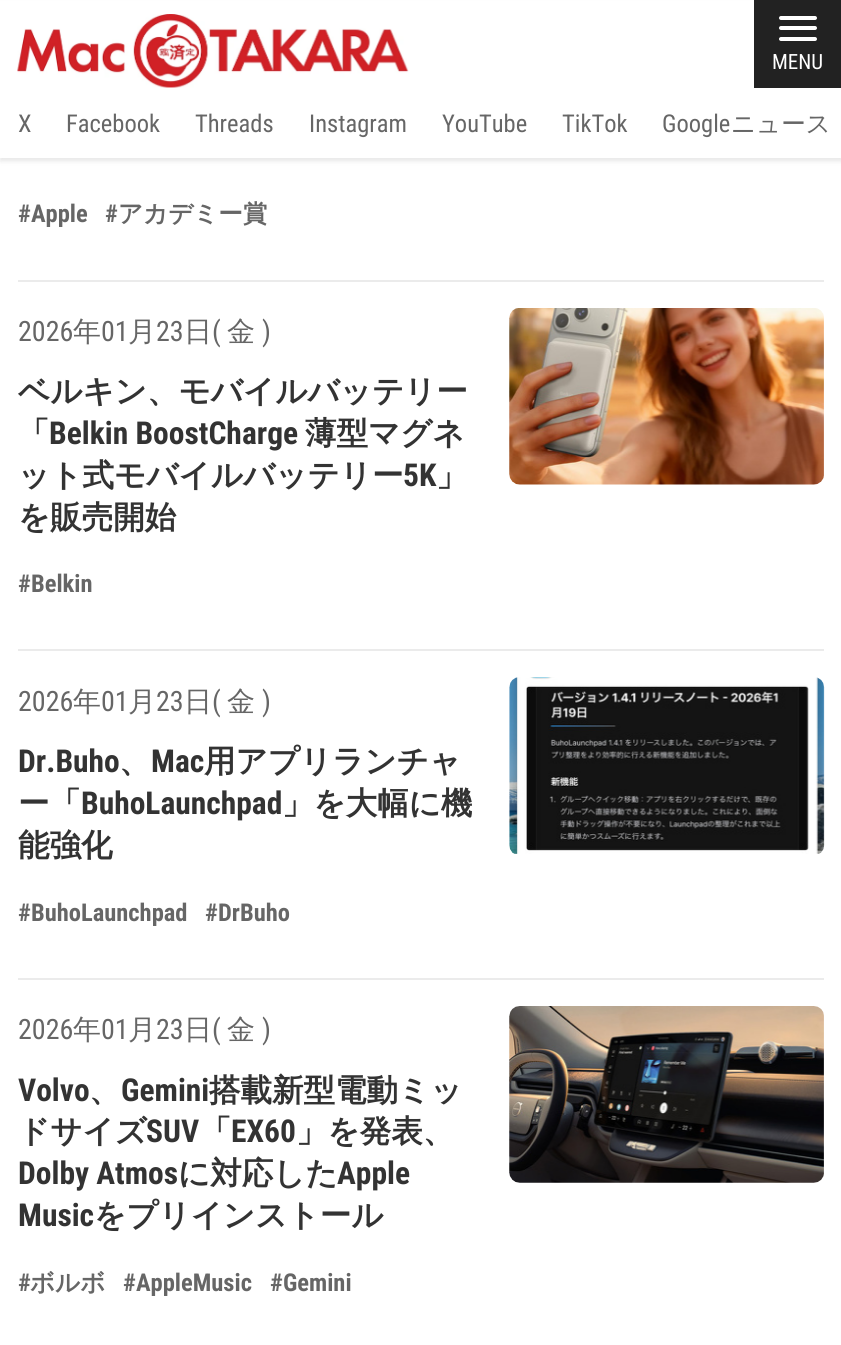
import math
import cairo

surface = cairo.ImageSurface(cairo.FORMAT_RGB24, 841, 1345)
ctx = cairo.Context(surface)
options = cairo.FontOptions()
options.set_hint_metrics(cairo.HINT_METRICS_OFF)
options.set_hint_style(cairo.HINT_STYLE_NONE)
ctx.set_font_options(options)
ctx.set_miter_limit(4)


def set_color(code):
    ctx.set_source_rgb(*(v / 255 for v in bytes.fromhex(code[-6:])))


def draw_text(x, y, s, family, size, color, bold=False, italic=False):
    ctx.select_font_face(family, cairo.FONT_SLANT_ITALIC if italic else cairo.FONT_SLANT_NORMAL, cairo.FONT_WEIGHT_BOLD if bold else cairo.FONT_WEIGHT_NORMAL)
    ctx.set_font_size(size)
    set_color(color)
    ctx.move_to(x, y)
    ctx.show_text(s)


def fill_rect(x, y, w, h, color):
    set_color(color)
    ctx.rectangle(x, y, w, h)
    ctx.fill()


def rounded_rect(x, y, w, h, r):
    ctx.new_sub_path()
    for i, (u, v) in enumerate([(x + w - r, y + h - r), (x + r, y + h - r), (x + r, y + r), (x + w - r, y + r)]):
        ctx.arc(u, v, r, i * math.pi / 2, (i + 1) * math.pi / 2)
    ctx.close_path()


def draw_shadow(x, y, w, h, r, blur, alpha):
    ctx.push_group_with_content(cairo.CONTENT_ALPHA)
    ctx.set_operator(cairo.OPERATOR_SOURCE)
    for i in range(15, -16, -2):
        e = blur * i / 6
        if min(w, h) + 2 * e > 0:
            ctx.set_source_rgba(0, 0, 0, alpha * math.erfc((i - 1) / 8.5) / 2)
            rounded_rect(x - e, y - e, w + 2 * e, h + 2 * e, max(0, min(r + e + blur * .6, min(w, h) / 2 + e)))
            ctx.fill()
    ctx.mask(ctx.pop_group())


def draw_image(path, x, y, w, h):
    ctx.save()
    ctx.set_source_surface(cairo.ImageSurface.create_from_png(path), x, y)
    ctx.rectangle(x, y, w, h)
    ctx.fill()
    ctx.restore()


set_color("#ffffff")
ctx.paint()
set_color("#000000")
draw_shadow(0, 4, 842, 157, 0, 2.5, 0.1)
fill_rect(0, 1, 841, 157, "#ffffff")
draw_image("assets/img1.png", 17, 14, 392, 74)
fill_rect(754, 0, 87, 88, "#222222")
set_color("#ffffff")
rounded_rect(779, 26, 38, 4, 2)
ctx.fill()
rounded_rect(779, 16, 38, 4, 2)
ctx.fill()
rounded_rect(779, 37, 38, 4, 2)
ctx.fill()
draw_text(772, 69, "MENU", "Roboto Condensed", 21, "#ffffff")
draw_text(18, 132, "X", "Roboto Condensed", 24.5, "#666666")
draw_text(66, 132, "Facebook", "Roboto Condensed", 24.5, "#666666")
draw_text(195, 132, "Threads", "Roboto Condensed", 24.5, "#666666")
draw_text(309, 132, "Instagram", "Roboto Condensed", 24.5, "#666666")
draw_text(442, 132, "YouTube", "Roboto Condensed", 24.5, "#666666")
draw_text(562, 132, "TikTok", "Roboto Condensed", 24.5, "#666666")
draw_text(662, 132, "Google", "Roboto Condensed", 24.5, "#666666")
draw_text(731, 132, "ニュース", "WenQuanYi Zen Hei Medium", 24.5, "#666666")
fill_rect(18, 280, 806, 2, "#ebebeb")
draw_text(18, 222, "#Apple", "Roboto Condensed", 24.5, "#666666", bold=True)
draw_text(105, 222, "#", "Roboto Condensed", 24.5, "#666666", bold=True)
draw_text(118, 222, "アカデミー賞", "WenQuanYi Zen Hei", 24.5, "#666666", bold=True)
fill_rect(18, 649, 806, 2, "#ebebeb")
draw_text(18, 341, "2026", "Roboto Condensed", 28, "#666666")
draw_text(73, 341, "年", "WenQuanYi Zen Hei Medium", 28, "#666666")
draw_text(101, 341, "01", "Roboto Condensed", 28, "#666666")
draw_text(128, 341, "月", "WenQuanYi Zen Hei Medium", 28, "#666666")
draw_text(156, 341, "23", "Roboto Condensed", 28, "#666666")
draw_text(184, 341, "日", "WenQuanYi Zen Hei Medium", 28, "#666666")
draw_text(212, 341, "(", "Roboto Condensed", 28, "#666666")
draw_text(227, 341, "金", "WenQuanYi Zen Hei Medium", 28, "#666666")
draw_text(262, 341, ")", "Roboto Condensed", 28, "#666666")
draw_text(18, 402, "ベルキン、モバイルバッテリー", "WenQuanYi Zen Hei", 31.5, "#333333", bold=True)
draw_text(18, 444, "「", "WenQuanYi Zen Hei", 31.5, "#333333", bold=True)
draw_text(49, 444, "Belkin BoostCharge", "Roboto Condensed", 31.5, "#333333", bold=True)
draw_text(305, 444, "薄型マグネ", "WenQuanYi Zen Hei", 31.5, "#333333", bold=True)
draw_text(18, 486, "ット式モバイルバッテリー", "WenQuanYi Zen Hei", 31.5, "#333333", bold=True)
draw_text(403, 486, "5K", "Roboto Condensed", 31.5, "#333333", bold=True)
draw_text(436, 486, "」", "WenQuanYi Zen Hei", 31.5, "#333333", bold=True)
draw_text(18, 528, "を販売開始", "WenQuanYi Zen Hei", 31.5, "#333333", bold=True)
draw_image("assets/img2.png", 509, 308, 315, 177)
draw_text(18, 592, "#Belkin", "Roboto Condensed", 24.5, "#666666", bold=True)
fill_rect(18, 978, 806, 2, "#ebebeb")
draw_text(18, 711, "2026", "Roboto Condensed", 28, "#666666")
draw_text(73, 711, "年", "WenQuanYi Zen Hei Medium", 28, "#666666")
draw_text(101, 711, "01", "Roboto Condensed", 28, "#666666")
draw_text(128, 711, "月", "WenQuanYi Zen Hei Medium", 28, "#666666")
draw_text(156, 711, "23", "Roboto Condensed", 28, "#666666")
draw_text(184, 711, "日", "WenQuanYi Zen Hei Medium", 28, "#666666")
draw_text(212, 711, "(", "Roboto Condensed", 28, "#666666")
draw_text(227, 711, "金", "WenQuanYi Zen Hei Medium", 28, "#666666")
draw_text(262, 711, ")", "Roboto Condensed", 28, "#666666")
draw_text(18, 772, "Dr.Buho", "Roboto Condensed", 31.5, "#333333", bold=True)
draw_text(119, 772, "、", "WenQuanYi Zen Hei", 31.5, "#333333", bold=True)
draw_text(151, 772, "Mac", "Roboto Condensed", 31.5, "#333333", bold=True)
draw_text(204, 772, "用アプリランチャ", "WenQuanYi Zen Hei", 31.5, "#333333", bold=True)
draw_text(18, 814, "ー「", "WenQuanYi Zen Hei", 31.5, "#333333", bold=True)
draw_text(81, 814, "BuhoLaunchpad", "Roboto Condensed", 31.5, "#333333", bold=True)
draw_text(282, 814, "」を大幅に機", "WenQuanYi Zen Hei", 31.5, "#333333", bold=True)
draw_text(18, 856, "能強化", "WenQuanYi Zen Hei", 31.5, "#333333", bold=True)
draw_image("assets/img3.png", 509, 677, 316, 177)
draw_text(18, 921, "#BuhoLaunchpad", "Roboto Condensed", 24.5, "#666666", bold=True)
draw_text(205, 921, "#DrBuho", "Roboto Condensed", 24.5, "#666666", bold=True)
draw_text(18, 1039, "2026", "Roboto Condensed", 28, "#666666")
draw_text(73, 1039, "年", "WenQuanYi Zen Hei Medium", 28, "#666666")
draw_text(101, 1039, "01", "Roboto Condensed", 28, "#666666")
draw_text(128, 1039, "月", "WenQuanYi Zen Hei Medium", 28, "#666666")
draw_text(156, 1039, "23", "Roboto Condensed", 28, "#666666")
draw_text(184, 1039, "日", "WenQuanYi Zen Hei Medium", 28, "#666666")
draw_text(212, 1039, "(", "Roboto Condensed", 28, "#666666")
draw_text(227, 1039, "金", "WenQuanYi Zen Hei Medium", 28, "#666666")
draw_text(262, 1039, ")", "Roboto Condensed", 28, "#666666")
draw_text(18, 1101, "Volvo", "Roboto Condensed", 31.5, "#333333", bold=True)
draw_text(89, 1101, "、", "WenQuanYi Zen Hei", 31.5, "#333333", bold=True)
draw_text(121, 1101, "Gemini", "Roboto Condensed", 31.5, "#333333", bold=True)
draw_text(209, 1101, "搭載新型電動ミッ", "WenQuanYi Zen Hei", 31.5, "#333333", bold=True)
draw_text(18, 1142, "ドサイズ", "WenQuanYi Zen Hei", 31.5, "#333333", bold=True)
draw_text(146, 1142, "SUV", "Roboto Condensed", 31.5, "#333333", bold=True)
draw_text(200, 1142, "「", "WenQuanYi Zen Hei", 31.5, "#333333", bold=True)
draw_text(231, 1142, "EX60", "Roboto Condensed", 31.5, "#333333", bold=True)
draw_text(296, 1142, "」を発表、", "WenQuanYi Zen Hei", 31.5, "#333333", bold=True)
draw_text(18, 1184, "Dolby Atmos", "Roboto Condensed", 31.5, "#333333", bold=True)
draw_text(178, 1184, "に対応した", "WenQuanYi Zen Hei", 31.5, "#333333", bold=True)
draw_text(337, 1184, "Apple", "Roboto Condensed", 31.5, "#333333", bold=True)
draw_text(18, 1226, "Music", "Roboto Condensed", 31.5, "#333333", bold=True)
draw_text(94, 1226, "をプリインストール", "WenQuanYi Zen Hei", 31.5, "#333333", bold=True)
draw_image("assets/img4.png", 509, 1006, 315, 177)
draw_text(18, 1291, "#", "Roboto Condensed", 24.5, "#666666", bold=True)
draw_text(30, 1291, "ボルボ", "WenQuanYi Zen Hei", 24.5, "#666666", bold=True)
draw_text(123, 1291, "#AppleMusic", "Roboto Condensed", 24.5, "#666666", bold=True)
draw_text(270, 1291, "#Gemini", "Roboto Condensed", 24.5, "#666666", bold=True)
surface.write_to_png("output.png")
